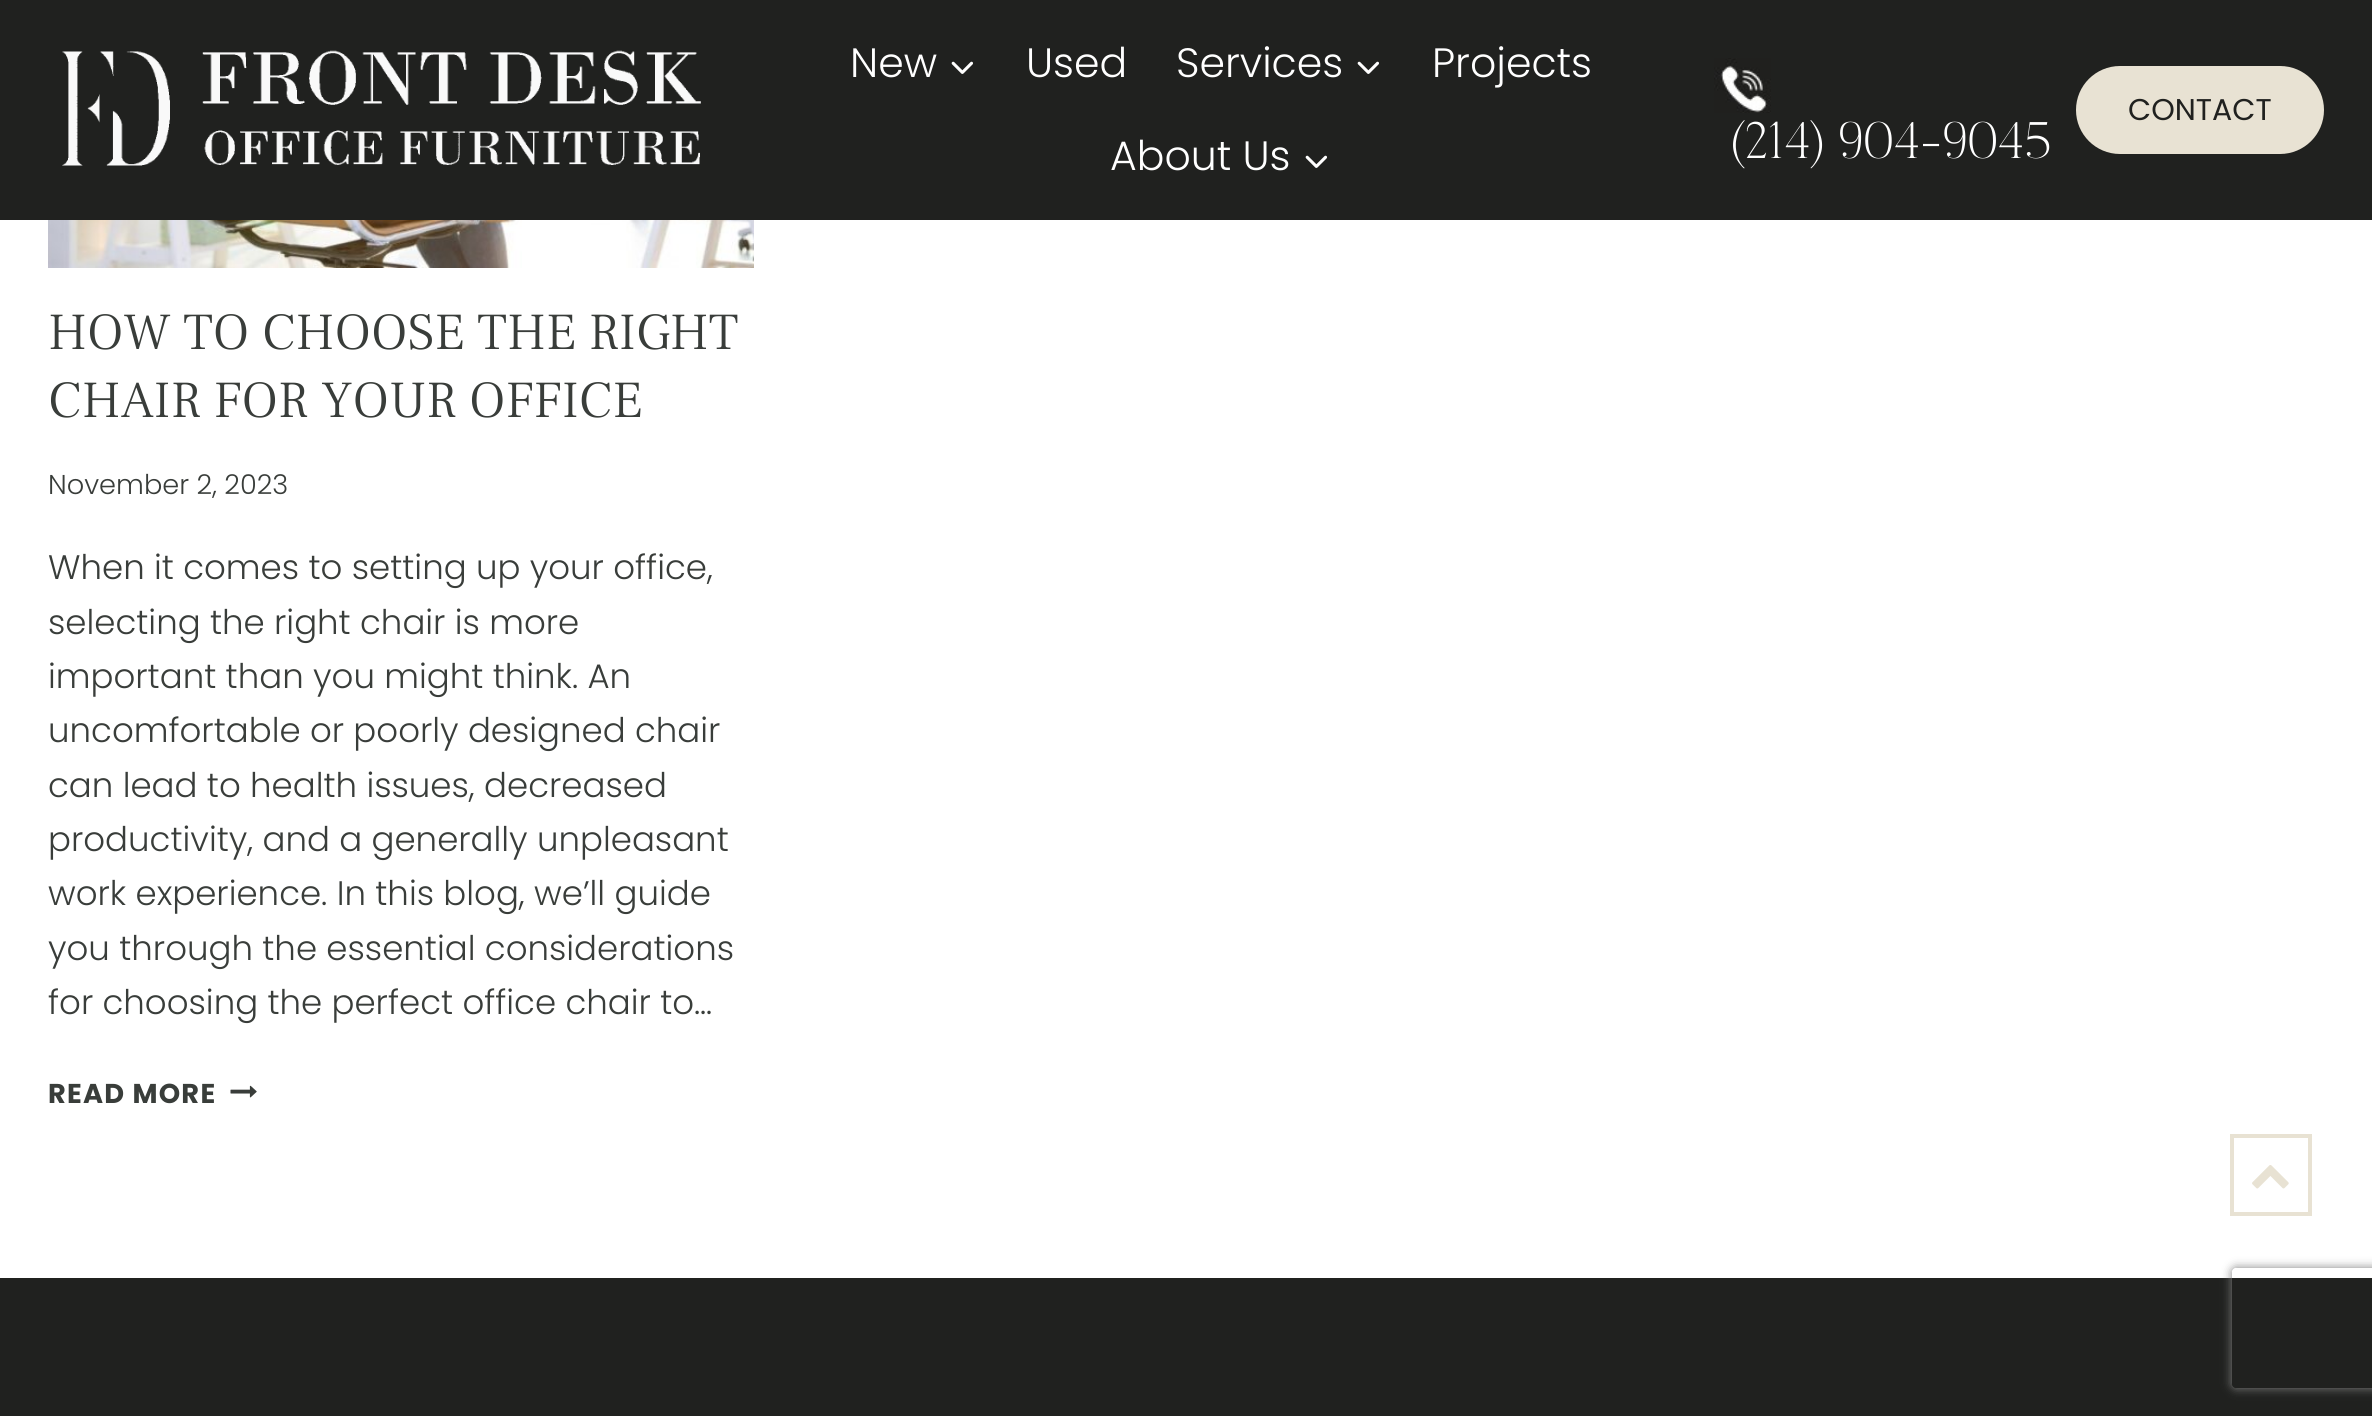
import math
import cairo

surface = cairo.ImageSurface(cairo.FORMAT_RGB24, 2372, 1416)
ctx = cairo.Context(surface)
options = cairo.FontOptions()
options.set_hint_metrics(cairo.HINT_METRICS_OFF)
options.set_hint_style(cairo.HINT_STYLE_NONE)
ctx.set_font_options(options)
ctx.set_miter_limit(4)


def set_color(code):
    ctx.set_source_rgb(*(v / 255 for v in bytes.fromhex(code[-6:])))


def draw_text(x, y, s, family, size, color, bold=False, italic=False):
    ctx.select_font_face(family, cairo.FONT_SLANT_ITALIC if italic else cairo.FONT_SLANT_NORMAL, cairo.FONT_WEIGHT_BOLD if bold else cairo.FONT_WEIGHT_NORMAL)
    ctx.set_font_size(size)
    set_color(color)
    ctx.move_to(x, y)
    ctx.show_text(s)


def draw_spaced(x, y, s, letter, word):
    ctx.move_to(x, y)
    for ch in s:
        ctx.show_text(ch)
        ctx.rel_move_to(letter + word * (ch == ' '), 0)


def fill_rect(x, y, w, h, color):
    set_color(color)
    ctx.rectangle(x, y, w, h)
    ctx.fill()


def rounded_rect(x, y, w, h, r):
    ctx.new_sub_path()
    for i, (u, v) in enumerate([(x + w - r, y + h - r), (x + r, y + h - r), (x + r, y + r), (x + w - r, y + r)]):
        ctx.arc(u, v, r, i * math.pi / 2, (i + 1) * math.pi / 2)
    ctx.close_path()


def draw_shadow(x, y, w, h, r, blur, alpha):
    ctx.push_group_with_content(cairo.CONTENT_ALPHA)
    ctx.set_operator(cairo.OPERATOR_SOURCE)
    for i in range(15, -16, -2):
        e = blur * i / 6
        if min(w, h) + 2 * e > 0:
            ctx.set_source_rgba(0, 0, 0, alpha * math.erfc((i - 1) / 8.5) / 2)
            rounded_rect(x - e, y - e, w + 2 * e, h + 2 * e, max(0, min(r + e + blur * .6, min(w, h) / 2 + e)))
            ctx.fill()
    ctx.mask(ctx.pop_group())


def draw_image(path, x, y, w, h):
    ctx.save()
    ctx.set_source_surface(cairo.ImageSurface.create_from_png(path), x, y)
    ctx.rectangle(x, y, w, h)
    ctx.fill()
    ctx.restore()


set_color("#ffffff")
ctx.paint()
fill_rect(0, 0, 2372, 220, "#20211f")
draw_image("assets/img1.png", 62, 50, 639, 116)
draw_text(850, 77, "New", "Poppins Light", 41, "#ffffff")
draw_image("assets/img2.png", 951, 61, 22, 13)
draw_text(1026, 77, "Used", "Poppins Light", 41, "#ffffff")
draw_text(1176, 77, "Services", "Poppins Light", 41, "#ffffff")
draw_image("assets/img2.png", 1357, 61, 22, 13)
draw_text(1432, 77, "Projects", "Poppins Light", 41, "#ffffff")
draw_text(1110, 170, "About Us", "Poppins Light", 41, "#ffffff")
draw_image("assets/img2.png", 1305, 155, 22, 13)
set_color("#e8e2d3")
rounded_rect(2076, 66, 248, 88, 44)
ctx.fill()
draw_text(2128, 120, "CONTACT", "Poppins", 30, "#20211f")
draw_image("assets/img3.png", 1714, 58, 57, 55)
draw_text(1729, 158, "(214) 904-9045", "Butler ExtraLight", 51, "#ffffff")
draw_image("assets/img4.png", 48, 220, 706, 48)
draw_text(48, 349, "HOW TO CHOOSE THE RIGHT", "Frank Ruhl Libre Light", 52, "#393d3a")
draw_text(48, 417, "CHAIR FOR YOUR OFFICE", "Frank Ruhl Libre Light", 52, "#393d3a")
draw_text(48, 494, "November 2, 2023", "Poppins Light", 27.25, "#393d3a")
draw_text(48, 579, "When it comes to setting up your office,", "Poppins Light", 34, "#393d3a")
draw_text(48, 634, "selecting the right chair is more", "Poppins Light", 34, "#393d3a")
draw_text(48, 688, "important than you might think. An", "Poppins Light", 34, "#393d3a")
draw_text(48, 742, "uncomfortable or poorly designed chair", "Poppins Light", 34, "#393d3a")
draw_text(48, 797, "can lead to health issues, decreased", "Poppins Light", 34, "#393d3a")
draw_text(48, 851, "productivity, and a generally unpleasant", "Poppins Light", 34, "#393d3a")
draw_text(48, 905, "work experience. In this blog, we’ll guide", "Poppins Light", 34, "#393d3a")
draw_text(48, 960, "you through the essential considerations", "Poppins Light", 34, "#393d3a")
draw_text(48, 1014, "for choosing the perfect office chair to…", "Poppins Light", 34, "#393d3a")
ctx.select_font_face("Poppins", cairo.FONT_SLANT_NORMAL, cairo.FONT_WEIGHT_BOLD)
ctx.set_font_size(27.25)
draw_spaced(48, 1103, "READ MORE", 1.25, 0)
draw_image("assets/img5.png", 230, 1085, 27, 13)
fill_rect(0, 1278, 2372, 138, "#20211f")
ctx.rectangle(2232, 1136, 78, 78)
set_color("#e8e2d3")
ctx.set_line_width(4)
ctx.stroke()
draw_image("assets/img6.png", 2252, 1165, 37, 24)
ctx.save()
ctx.set_fill_rule(cairo.FILL_RULE_EVEN_ODD)
ctx.new_path()
ctx.move_to(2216, 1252)
ctx.line_to(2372, 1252)
ctx.line_to(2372, 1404)
ctx.line_to(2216, 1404)
ctx.close_path()
ctx.move_to(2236, 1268)
ctx.line_to(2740, 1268)
ctx.curve_to(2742, 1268, 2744, 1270, 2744, 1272)
ctx.line_to(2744, 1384)
ctx.curve_to(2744, 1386, 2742, 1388, 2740, 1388)
ctx.line_to(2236, 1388)
ctx.curve_to(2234, 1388, 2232, 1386, 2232, 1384)
ctx.line_to(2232, 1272)
ctx.curve_to(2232, 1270, 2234, 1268, 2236, 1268)
ctx.close_path()
ctx.clip()
set_color("#808080")
draw_shadow(2232, 1268, 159, 120, 4, 5, 1)
ctx.restore()
surface.write_to_png("output.png")
